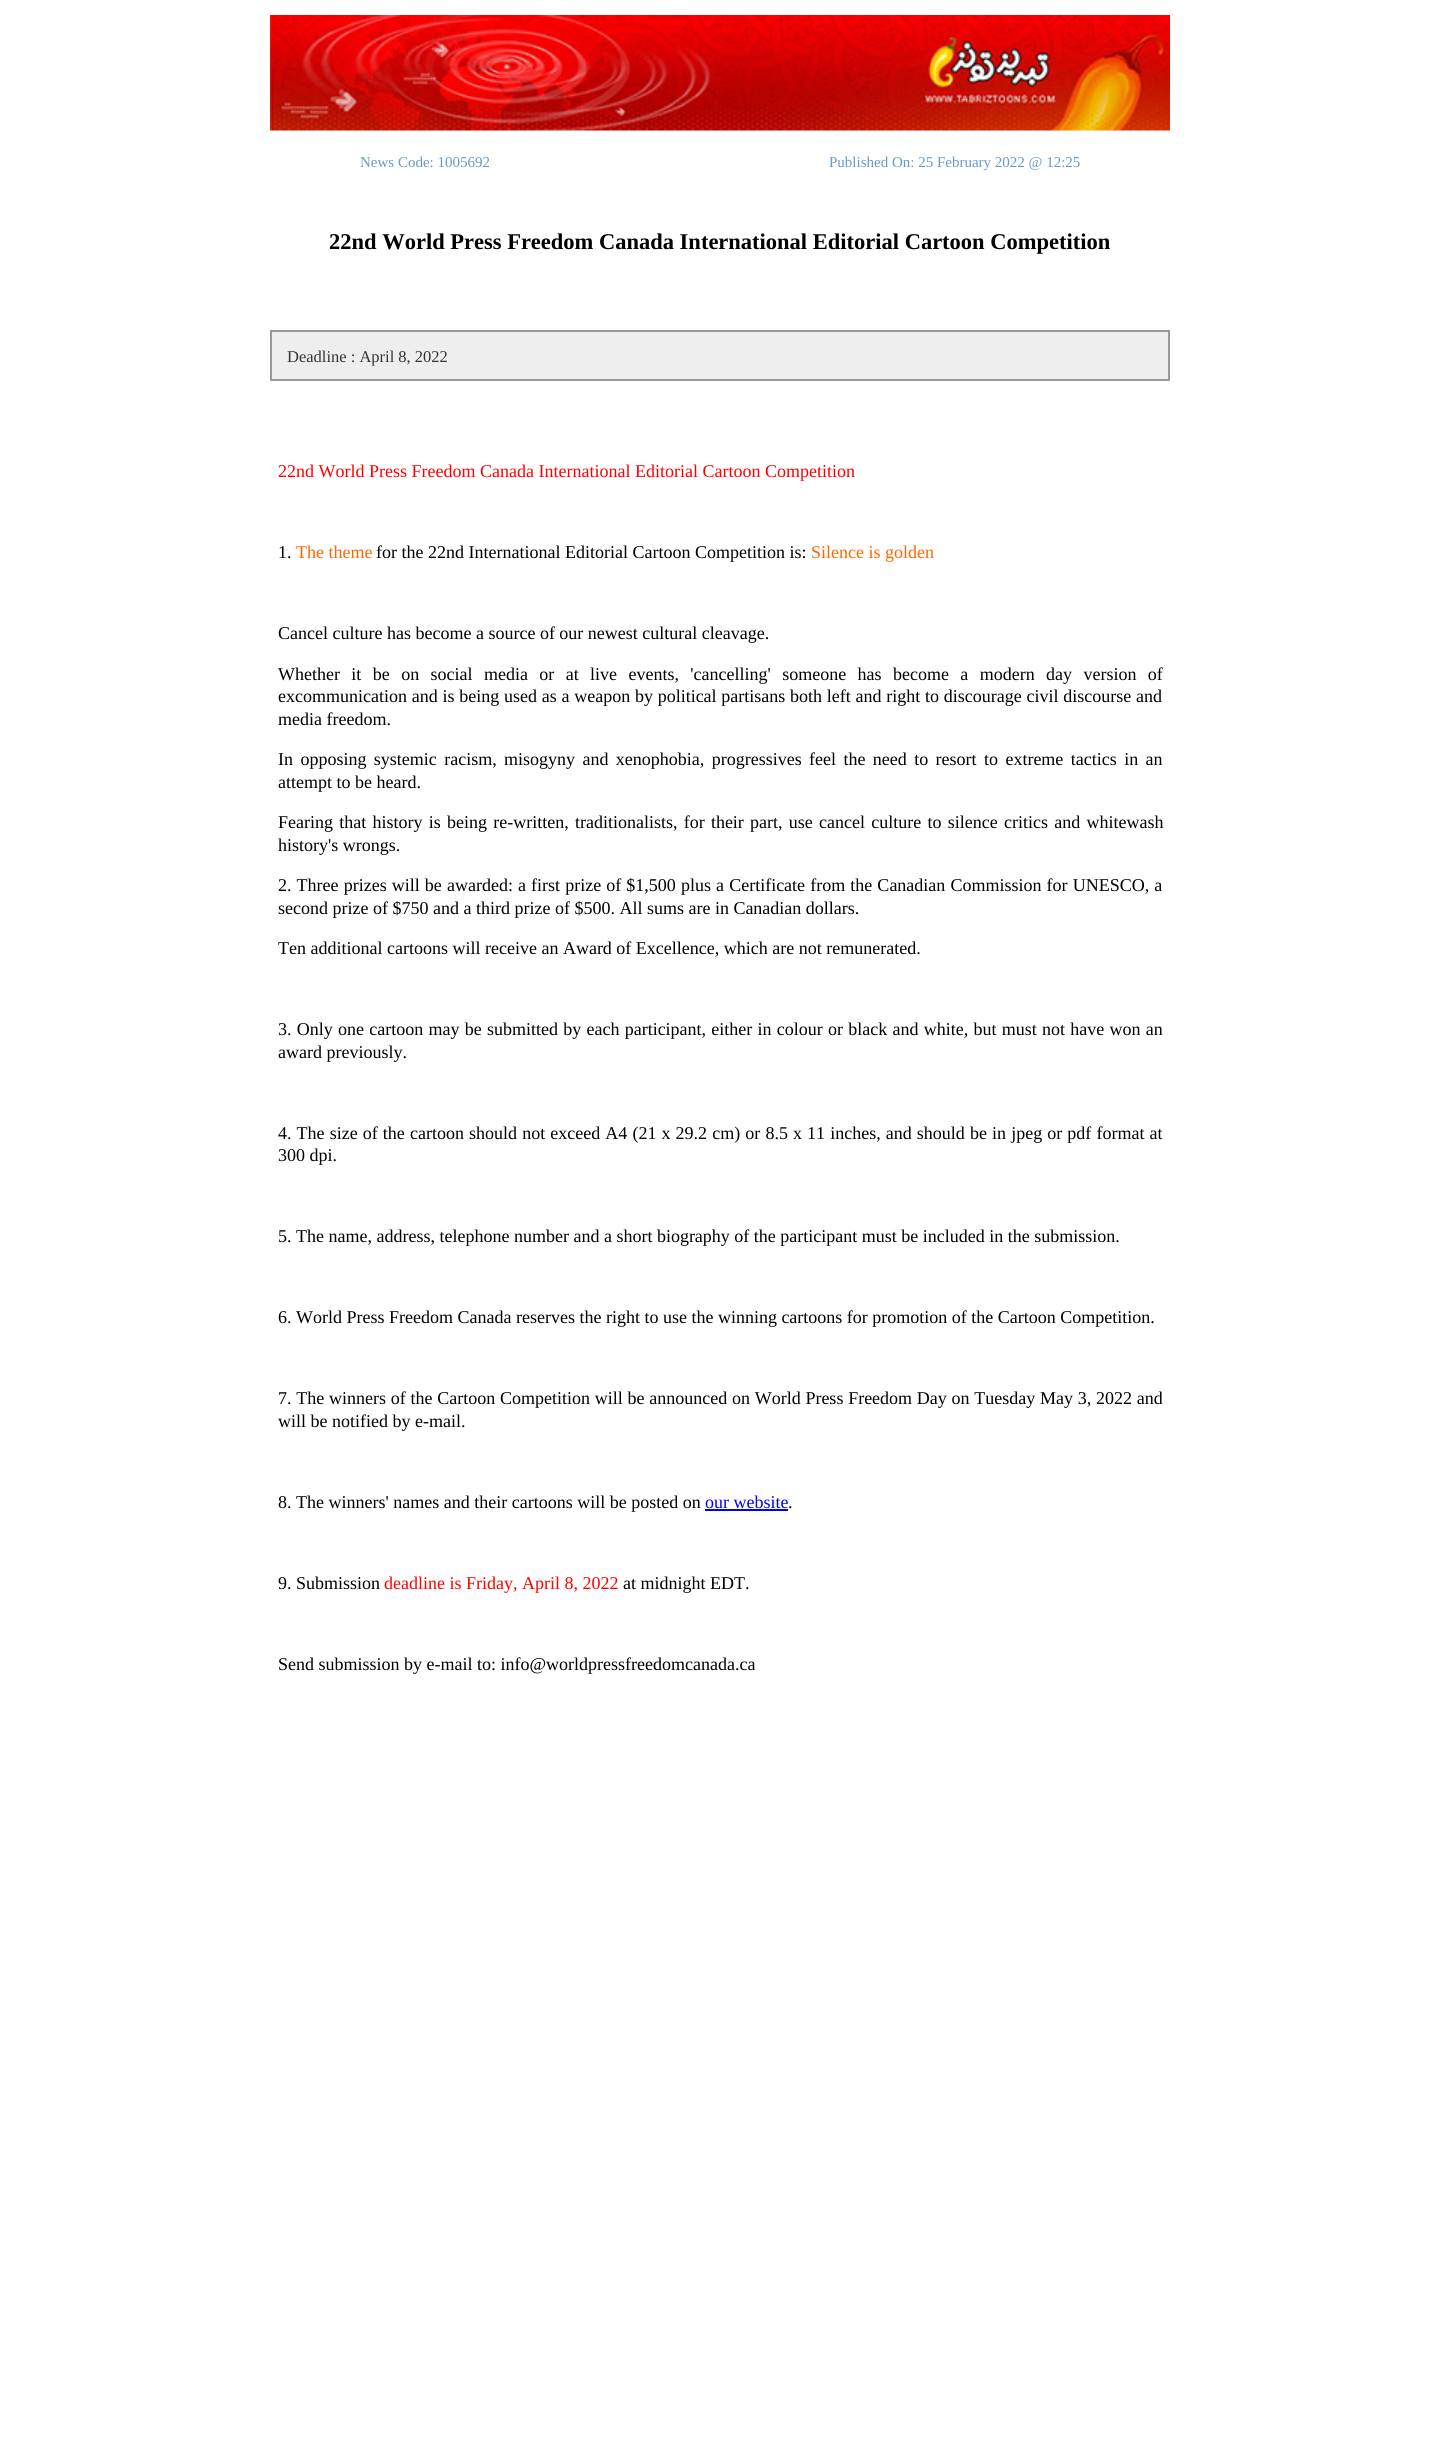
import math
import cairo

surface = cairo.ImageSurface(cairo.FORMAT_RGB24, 1440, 2437)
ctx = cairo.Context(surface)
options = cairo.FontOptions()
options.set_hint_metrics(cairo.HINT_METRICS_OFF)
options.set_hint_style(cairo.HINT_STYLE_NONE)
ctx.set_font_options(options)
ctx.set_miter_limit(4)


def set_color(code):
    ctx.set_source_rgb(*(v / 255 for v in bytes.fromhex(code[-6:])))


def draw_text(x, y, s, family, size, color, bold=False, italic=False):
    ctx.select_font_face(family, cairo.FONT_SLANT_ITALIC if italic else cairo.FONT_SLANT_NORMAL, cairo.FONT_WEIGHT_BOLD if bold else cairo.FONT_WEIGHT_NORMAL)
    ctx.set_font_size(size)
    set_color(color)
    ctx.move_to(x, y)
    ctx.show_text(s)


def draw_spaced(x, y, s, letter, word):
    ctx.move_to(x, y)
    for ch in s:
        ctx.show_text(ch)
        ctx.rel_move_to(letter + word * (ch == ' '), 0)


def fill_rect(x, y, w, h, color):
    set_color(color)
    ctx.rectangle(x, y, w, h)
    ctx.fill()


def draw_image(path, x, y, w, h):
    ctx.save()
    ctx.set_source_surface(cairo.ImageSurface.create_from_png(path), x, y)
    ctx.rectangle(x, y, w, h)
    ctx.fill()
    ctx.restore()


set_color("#ffffff")
ctx.paint()
draw_image("assets/img1.png", 270, 15, 900, 116)
draw_text(360, 167, "News Code: 1005692", "Liberation Serif", 15, "#6699cc")
draw_text(829, 167, "Published On: 25 February 2022 @ 12:25", "Liberation Serif", 15, "#6699cc")
draw_text(329, 249, "22nd World Press Freedom Canada International Editorial Cartoon Competition", "Liberation Serif", 22.5, "#000000", bold=True)
set_color("#eeeeee")
ctx.rectangle(271, 331, 898, 49)
ctx.fill_preserve()
set_color("#999999")
ctx.stroke()
draw_text(287, 362, "Deadline : April 8, 2022", "Liberation Serif", 16.5, "#333333")
draw_text(278, 477, "22nd World Press Freedom Canada International Editorial Cartoon Competition", "Liberation Serif", 18, "#ff0000")
draw_text(278, 558, "1.", "Liberation Serif", 18, "#000000")
draw_text(296, 558, "The theme", "Liberation Serif", 18, "#ff6600")
draw_text(376, 558, "for the 22nd International Editorial Cartoon Competition is:", "Liberation Serif", 18, "#000000")
draw_text(811, 558, "Silence is golden", "Liberation Serif", 18, "#ff6600")
draw_text(278, 639, "Cancel culture has become a source of our newest cultural cleavage.", "Liberation Serif", 18, "#000000")
draw_spaced(278, 680, "Whether it be on social media or at live events, 'cancelling' someone has become a modern day version of", 0, 6.9)
draw_spaced(278, 702, "excommunication and is being used as a weapon by political partisans both left and right to discourage civil discourse and", 0, 0.25)
draw_text(278, 725, "media freedom.", "Liberation Serif", 18, "#000000")
draw_spaced(278, 765, "In opposing systemic racism, misogyny and xenophobia, progressives feel the need to resort to extreme tactics in an", 0, 2.9)
draw_text(278, 788, "attempt to be heard.", "Liberation Serif", 18, "#000000")
draw_spaced(278, 828, "Fearing that history is being re-written, traditionalists, for their part, use cancel culture to silence critics and whitewash", 0, 1.75)
draw_text(278, 851, "history's wrongs.", "Liberation Serif", 18, "#000000")
draw_spaced(278, 891, "2. Three prizes will be awarded: a first prize of $1,500 plus a Certificate from the Canadian Commission for UNESCO, a", 0, 0.6)
draw_text(278, 914, "second prize of $750 and a third prize of $500. All sums are in Canadian dollars.", "Liberation Serif", 18, "#000000")
draw_text(278, 954, "Ten additional cartoons will receive an Award of Excellence, which are not remunerated.", "Liberation Serif", 18, "#000000")
draw_spaced(278, 1035, "3. Only one cartoon may be submitted by each participant, either in colour or black and white, but must not have won an", 0, 0.75)
draw_text(278, 1058, "award previously.", "Liberation Serif", 18, "#000000")
draw_spaced(278, 1139, "4. The size of the cartoon should not exceed A4 (21 x 29.2 cm) or 8.5 x 11 inches, and should be in jpeg or pdf format at", 0, 0.6)
draw_text(278, 1161, "300 dpi.", "Liberation Serif", 18, "#000000")
draw_text(278, 1242, "5. The name, address, telephone number and a short biography of the participant must be included in the submission.", "Liberation Serif", 18, "#000000")
draw_text(278, 1323, "6. World Press Freedom Canada reserves the right to use the winning cartoons for promotion of the Cartoon Competition.", "Liberation Serif", 18, "#000000")
draw_spaced(278, 1404, "7. The winners of the Cartoon Competition will be announced on World Press Freedom Day on Tuesday May 3, 2022 and", 0, 0.25)
draw_text(278, 1427, "will be notified by e-mail.", "Liberation Serif", 18, "#000000")
draw_text(278, 1508, "8. The winners' names and their cartoons will be posted on", "Liberation Serif", 18, "#000000")
draw_text(705, 1508, "our website", "Liberation Serif", 18, "#0000ee")
fill_rect(705, 1509, 83, 2, "#0000ee")
draw_text(788, 1508, ".", "Liberation Serif", 18, "#000000")
draw_text(278, 1589, "9. Submission", "Liberation Serif", 18, "#000000")
draw_text(384, 1589, "deadline is Friday, April 8, 2022", "Liberation Serif", 18, "#ff0000")
draw_text(623, 1589, "at midnight EDT.", "Liberation Serif", 18, "#000000")
draw_text(278, 1670, "Send submission by e-mail to: info@worldpressfreedomcanada.ca", "Liberation Serif", 18, "#000000")
surface.write_to_png("output.png")
